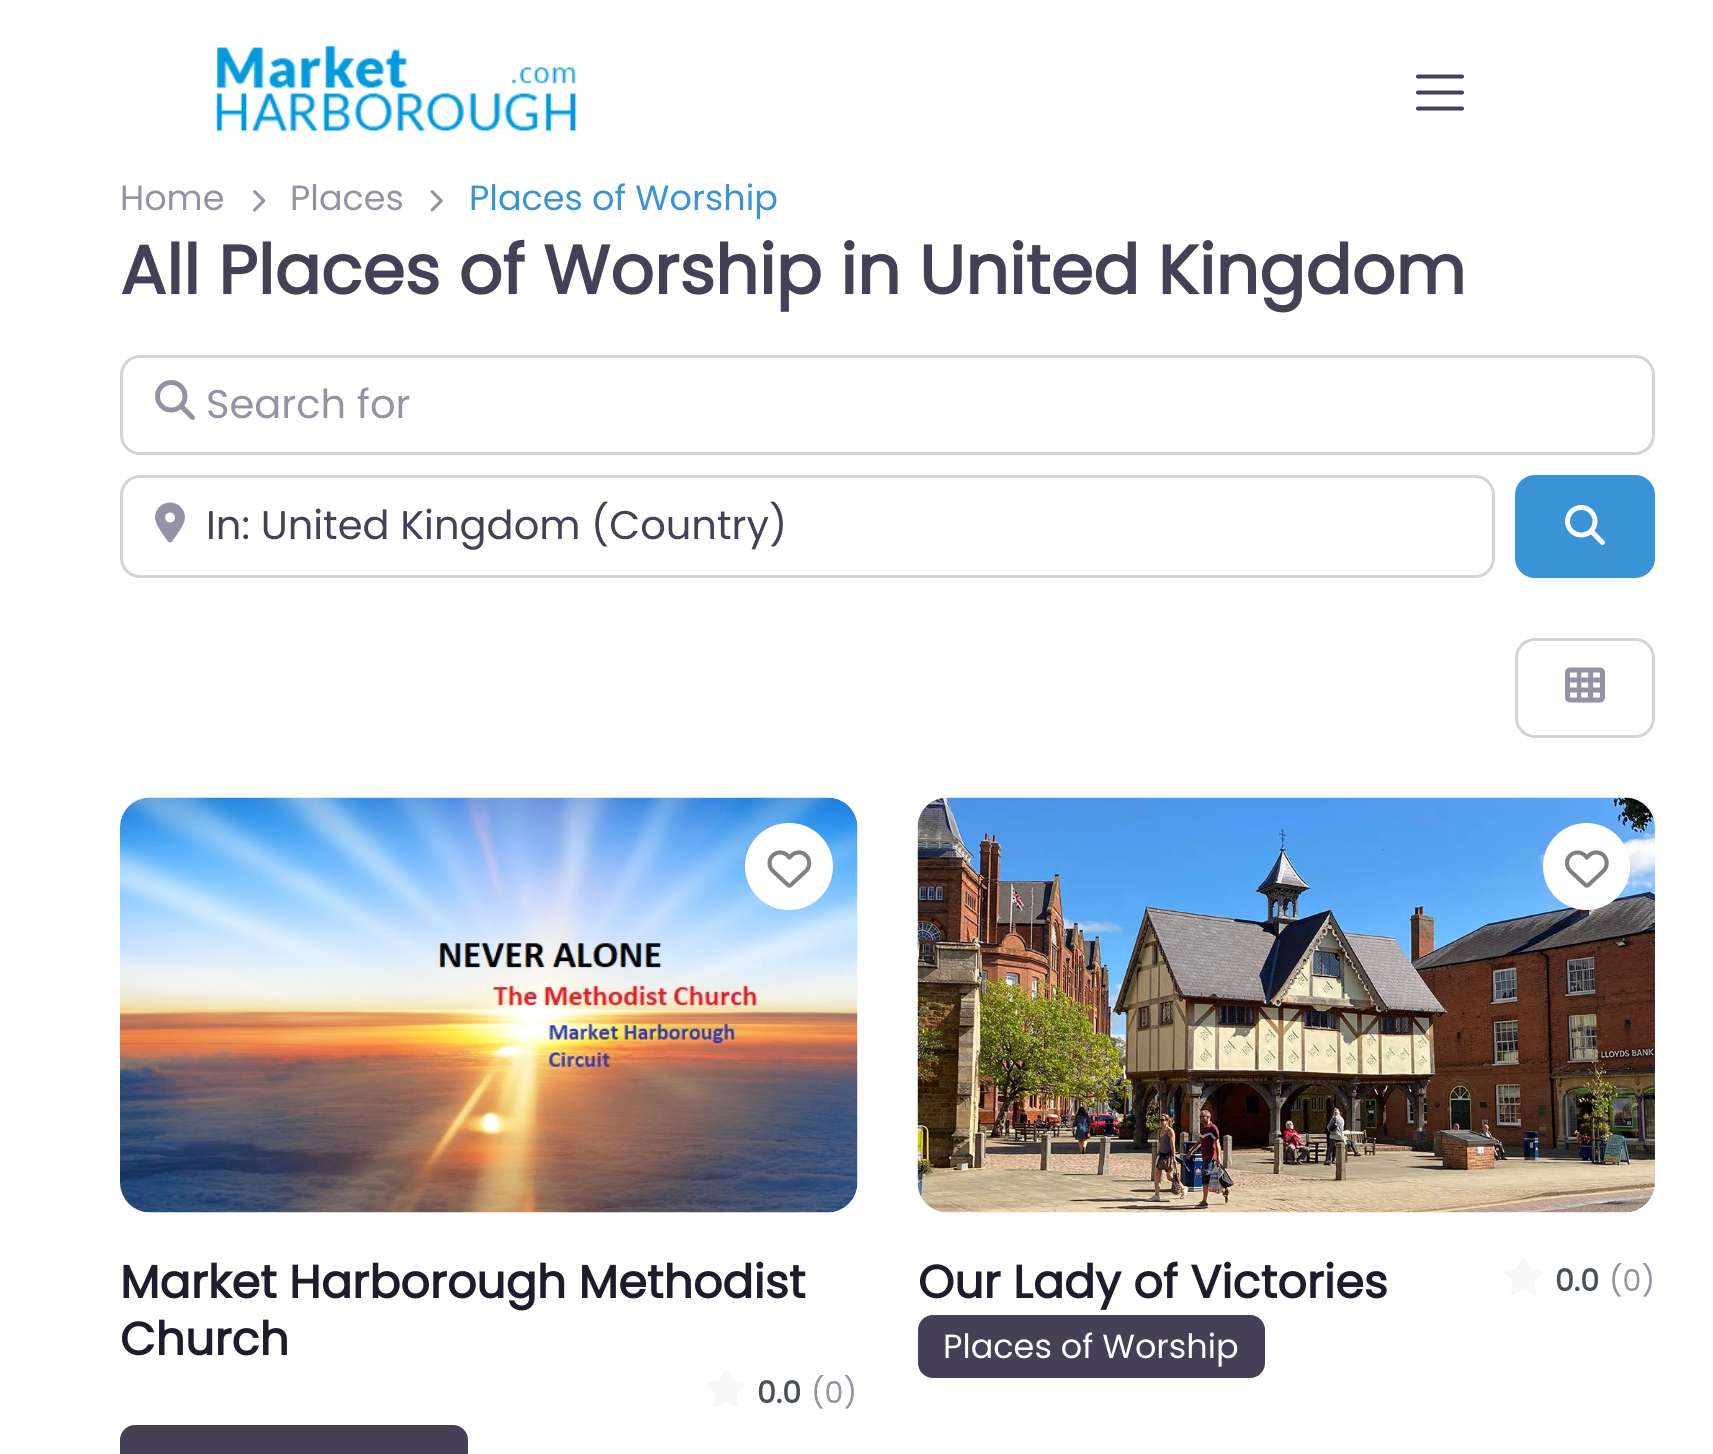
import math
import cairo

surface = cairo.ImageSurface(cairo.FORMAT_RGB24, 1713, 1454)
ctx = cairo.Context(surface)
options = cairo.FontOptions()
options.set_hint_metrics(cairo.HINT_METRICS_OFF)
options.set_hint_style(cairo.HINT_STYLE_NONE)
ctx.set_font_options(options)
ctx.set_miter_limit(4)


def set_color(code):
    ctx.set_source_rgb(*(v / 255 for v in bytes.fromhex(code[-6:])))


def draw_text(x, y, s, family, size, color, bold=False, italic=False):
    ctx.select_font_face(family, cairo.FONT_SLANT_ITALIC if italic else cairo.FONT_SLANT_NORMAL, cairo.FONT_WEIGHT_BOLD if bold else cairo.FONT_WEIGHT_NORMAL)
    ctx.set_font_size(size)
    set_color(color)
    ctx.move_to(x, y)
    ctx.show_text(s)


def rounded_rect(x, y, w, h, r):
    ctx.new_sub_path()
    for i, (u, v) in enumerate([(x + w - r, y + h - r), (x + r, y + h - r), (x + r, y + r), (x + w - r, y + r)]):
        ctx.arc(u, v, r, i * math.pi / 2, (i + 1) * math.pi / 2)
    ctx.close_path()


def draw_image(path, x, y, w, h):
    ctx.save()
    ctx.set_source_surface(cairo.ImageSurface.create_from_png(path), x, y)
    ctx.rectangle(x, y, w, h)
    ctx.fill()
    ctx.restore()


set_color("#ffffff")
ctx.paint()
draw_image("assets/img1.png", 215, 45, 361, 87)
ctx.new_path()
ctx.move_to(1418, 76.5)
ctx.line_to(1462, 76.5)
ctx.move_to(1418, 92.5)
ctx.line_to(1462, 92.5)
ctx.move_to(1418, 108.5)
ctx.line_to(1462, 108.5)
set_color("#454056")
ctx.set_line_width(4)
ctx.set_line_cap(cairo.LINE_CAP_ROUND)
ctx.stroke()
draw_text(120, 210, "Home", "Poppins", 35, "#9691a4")
draw_image("assets/img2.png", 253, 190, 13, 22)
draw_text(290, 210, "Places", "Poppins", 35, "#9691a4")
draw_image("assets/img3.png", 430, 190, 13, 22)
draw_text(469, 210, "Places of Worship", "Poppins", 35, "#3993d5")
draw_text(120, 294, "All Places of Worship in United Kingdom", "Poppins", 68.4, "#454056", bold=True)
rounded_rect(121.5, 356.5, 1532, 97, 18.5)
set_color("#d5d2dc")
ctx.set_line_width(3)
ctx.set_line_cap(cairo.LINE_CAP_BUTT)
ctx.stroke()
draw_image("assets/img4.png", 155, 380, 40, 40)
draw_text(206, 418, "Search for", "Poppins", 40, "#9691a4")
rounded_rect(121.5, 476.5, 1372, 100, 18.5)
set_color("#d5d2dc")
ctx.stroke()
draw_image("assets/img5.png", 155, 502, 30, 41)
draw_text(206, 539, "In: United Kingdom (Country)", "Poppins", 40, "#454056")
set_color("#3993d5")
rounded_rect(1516.5, 476.5, 137, 100, 18.5)
ctx.fill_preserve()
ctx.stroke()
draw_image("assets/img6.png", 1565, 505, 40, 40)
rounded_rect(1516.5, 639.5, 137, 97, 18.5)
set_color("#d5d2dc")
ctx.stroke()
draw_image("assets/img7.png", 1565, 667, 40, 36)
draw_image("assets/img8.png", 120, 797, 738, 416)
set_color("#ffffff")
rounded_rect(746.5, 824.5, 85, 84, 42)
ctx.fill_preserve()
ctx.stroke()
draw_image("assets/img9.png", 767, 850, 45, 38)
draw_text(120, 1298, "Market Harborough Methodist", "Poppins", 46, "#1f1b2d", bold=True)
draw_text(120, 1355, "Church", "Poppins", 46, "#1f1b2d", bold=True)
draw_image("assets/img10.png", 707, 1370, 38, 37)
draw_text(757, 1403, "0.0", "Poppins", 30, "#495057", bold=True)
draw_text(811, 1403, "(0)", "Poppins", 30, "#9691a4")
set_color("#454056")
rounded_rect(120, 1425, 348, 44, 15)
ctx.fill()
draw_image("assets/img11.png", 917, 797, 738, 416)
set_color("#ffffff")
ctx.arc(1586.5, 866.5, 42, 0, 2 * math.pi)
ctx.fill_preserve()
ctx.stroke()
draw_image("assets/img12.png", 1565, 850, 44, 38)
draw_text(918, 1298, "Our Lady of Victories", "Poppins", 46, "#1f1b2d", bold=True)
draw_image("assets/img13.png", 1504, 1257, 39, 38)
draw_text(1555, 1291, "0.0", "Poppins", 30, "#495057", bold=True)
draw_text(1609, 1291, "(0)", "Poppins", 30, "#9691a4")
set_color("#454056")
rounded_rect(918, 1315, 347, 63, 15)
ctx.fill()
draw_text(943, 1358, "Places of Worship", "Poppins", 33.5, "#ffffff")
surface.write_to_png("output.png")
